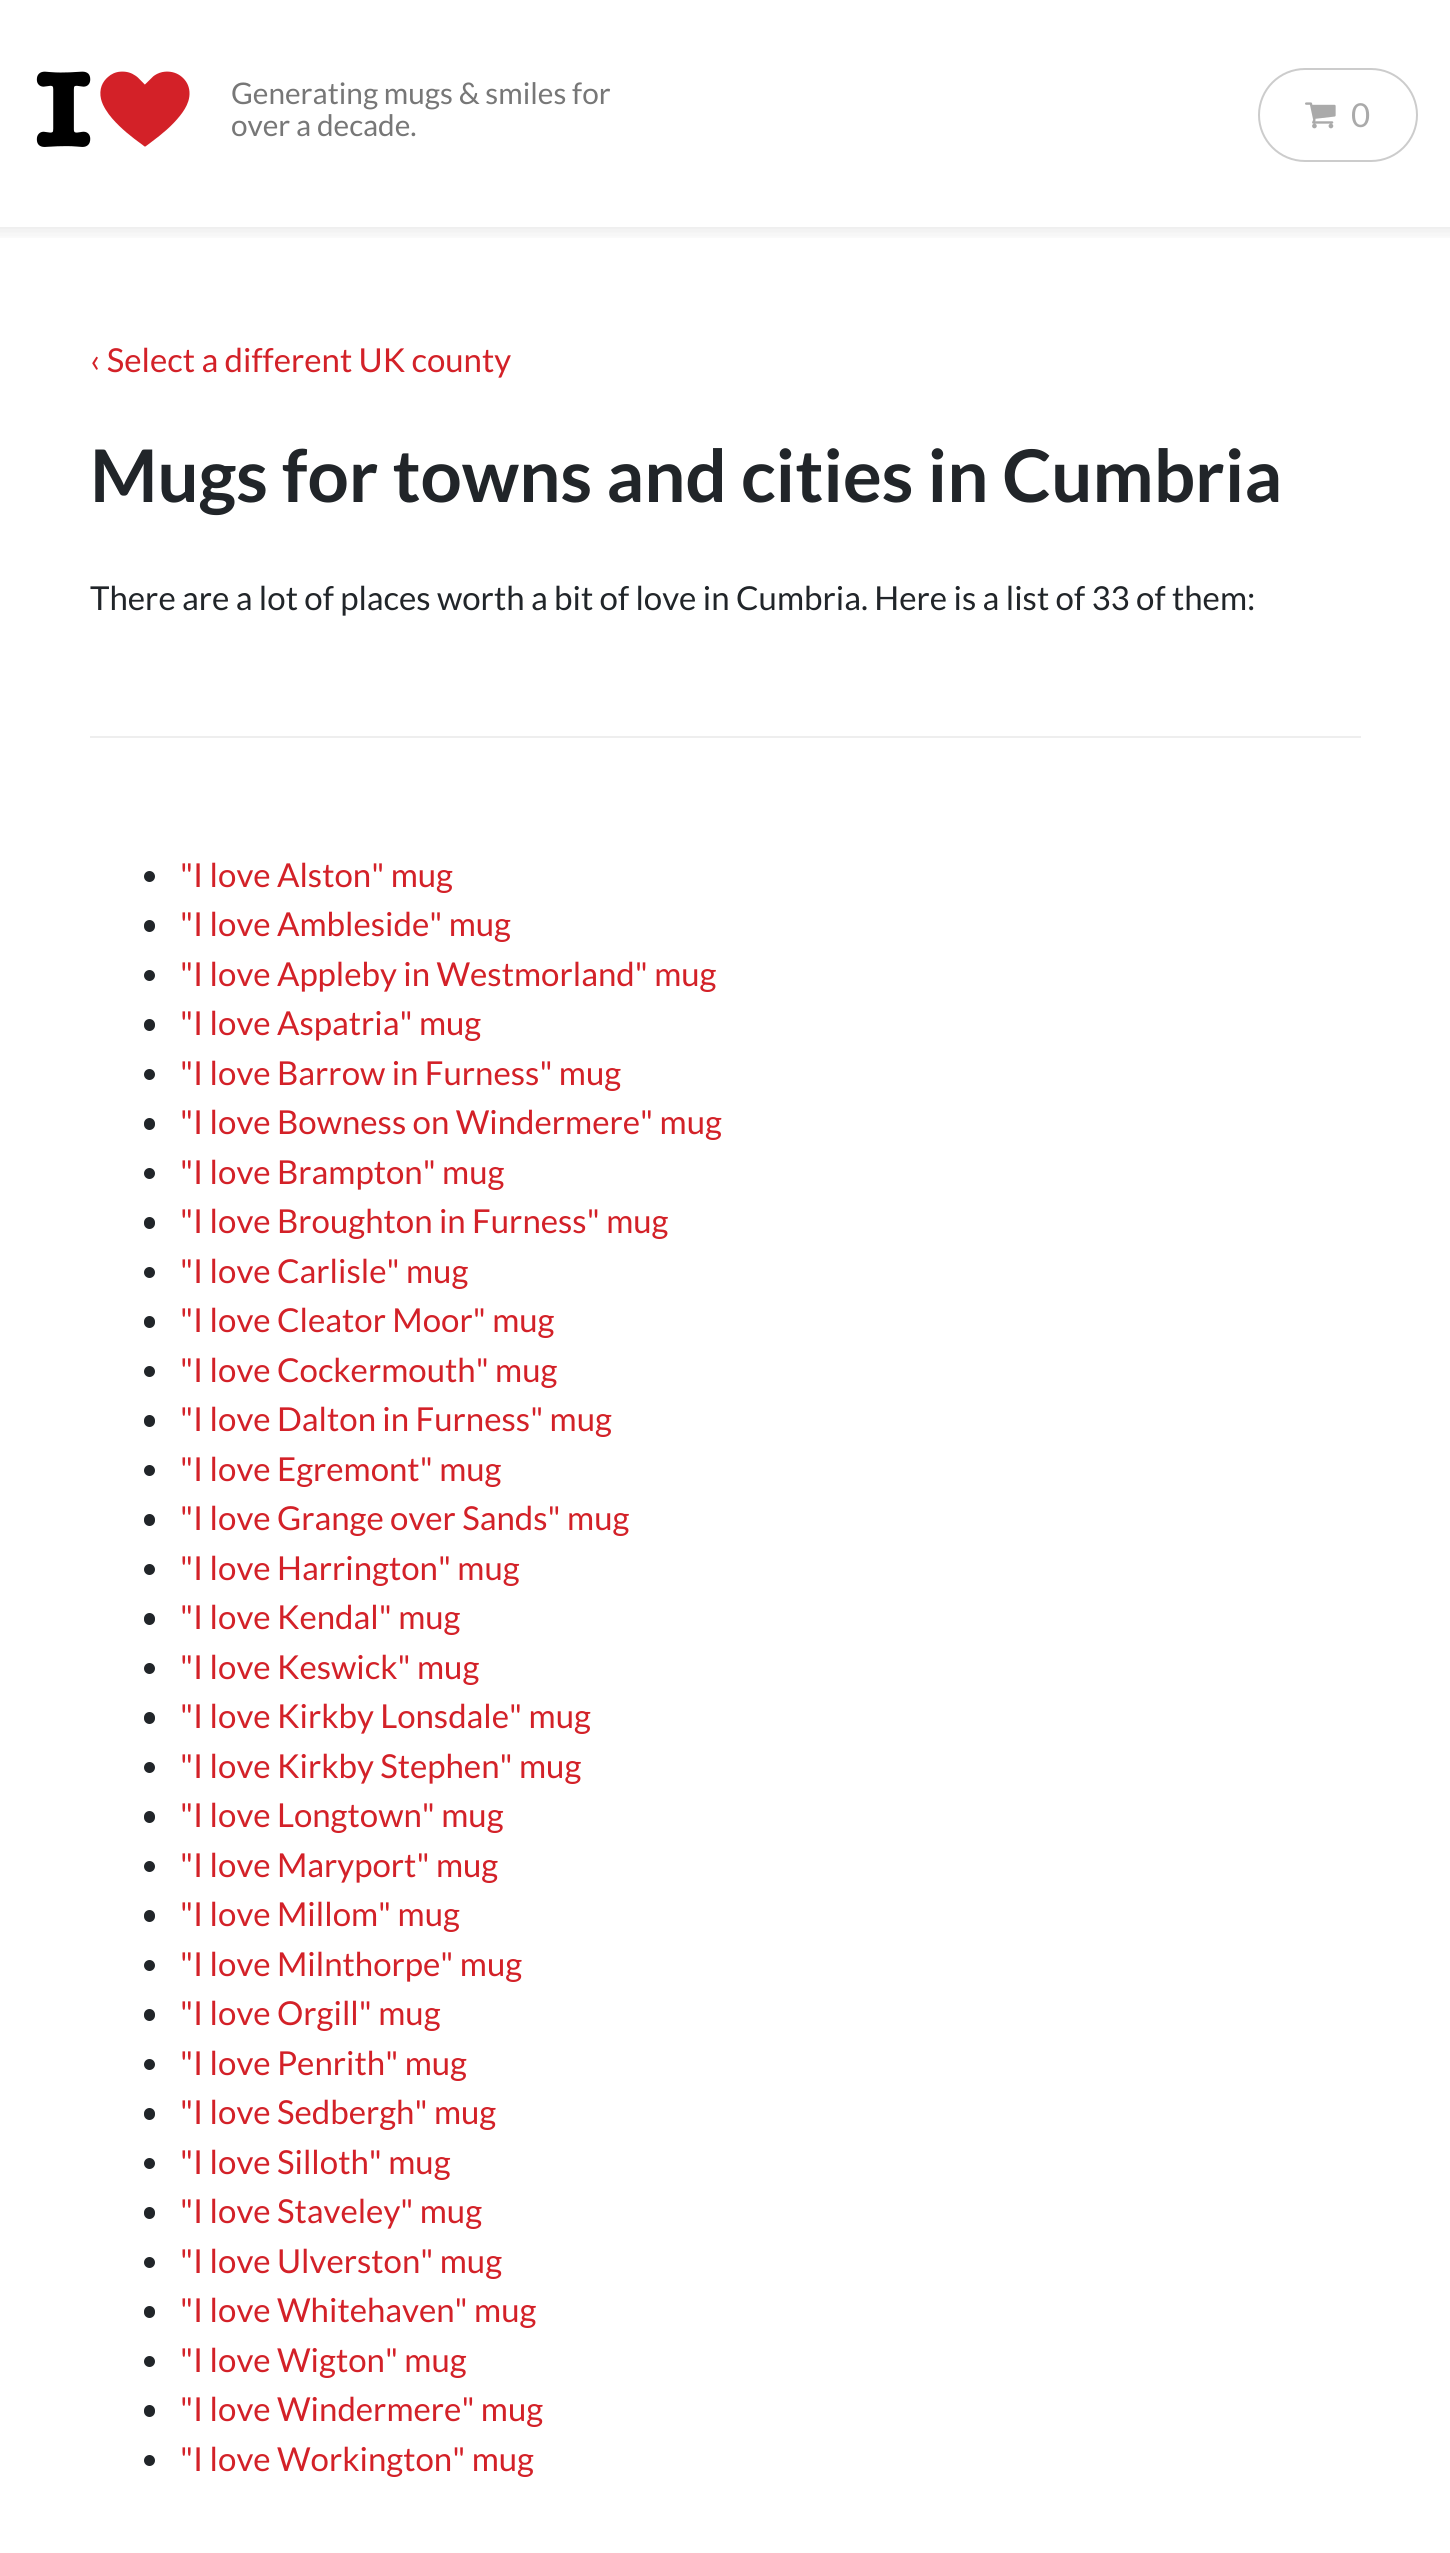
import math
import cairo

surface = cairo.ImageSurface(cairo.FORMAT_RGB24, 1450, 2553)
ctx = cairo.Context(surface)
options = cairo.FontOptions()
options.set_hint_metrics(cairo.HINT_METRICS_OFF)
options.set_hint_style(cairo.HINT_STYLE_NONE)
ctx.set_font_options(options)
ctx.set_miter_limit(4)


def set_color(code):
    ctx.set_source_rgb(*(v / 255 for v in bytes.fromhex(code[-6:])))


def draw_text(x, y, s, family, size, color, bold=False, italic=False):
    ctx.select_font_face(family, cairo.FONT_SLANT_ITALIC if italic else cairo.FONT_SLANT_NORMAL, cairo.FONT_WEIGHT_BOLD if bold else cairo.FONT_WEIGHT_NORMAL)
    ctx.set_font_size(size)
    set_color(color)
    ctx.move_to(x, y)
    ctx.show_text(s)


def fill_rect(x, y, w, h, color):
    set_color(color)
    ctx.rectangle(x, y, w, h)
    ctx.fill()


def rounded_rect(x, y, w, h, r):
    ctx.new_sub_path()
    for i, (u, v) in enumerate([(x + w - r, y + h - r), (x + r, y + h - r), (x + r, y + r), (x + w - r, y + r)]):
        ctx.arc(u, v, r, i * math.pi / 2, (i + 1) * math.pi / 2)
    ctx.close_path()


def draw_shadow(x, y, w, h, r, blur, alpha):
    ctx.push_group_with_content(cairo.CONTENT_ALPHA)
    ctx.set_operator(cairo.OPERATOR_SOURCE)
    for i in range(15, -16, -2):
        e = blur * i / 6
        if min(w, h) + 2 * e > 0:
            ctx.set_source_rgba(0, 0, 0, alpha * math.erfc((i - 1) / 8.5) / 2)
            rounded_rect(x - e, y - e, w + 2 * e, h + 2 * e, max(0, min(r + e + blur * .6, min(w, h) / 2 + e)))
            ctx.fill()
    ctx.mask(ctx.pop_group())


def draw_image(path, x, y, w, h):
    ctx.save()
    ctx.set_source_surface(cairo.ImageSurface.create_from_png(path), x, y)
    ctx.rectangle(x, y, w, h)
    ctx.fill()
    ctx.restore()


set_color("#ffffff")
ctx.paint()
ctx.save()
ctx.rectangle(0, 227, 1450, 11)
ctx.clip()
set_color("#000000")
draw_shadow(-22, -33, 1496, 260, 0, 11, 0.13)
ctx.restore()
draw_image("assets/img1.png", 36, 71, 154, 76)
draw_text(231, 104, "Generating mugs & smiles for", "Lato", 29.75, "#777777")
draw_text(231, 136, "over a decade.", "Lato", 29.75, "#777777")
rounded_rect(1259, 69, 158, 92, 46)
set_color("#cccccc")
ctx.stroke()
draw_image("assets/img2.png", 1305, 102, 31, 27)
draw_text(1351, 127, "0", "Lato", 33, "#aaaaaa")
draw_text(90, 372, "‹ Select a different UK county", "Lato", 33, "#d32128")
draw_text(90, 502, "Mugs for towns and cities in Cumbria", "Lato", 72.6, "#212529", bold=True)
draw_text(90, 610, "There are a lot of places worth a bit of love in Cumbria. Here is a list of 33 of them:", "Lato", 33, "#212529")
fill_rect(90, 736, 1271, 2, "#eeeeee")
set_color("#212529")
ctx.new_path()
ctx.arc(149.5, 876.5, 5.5, 0, 2 * math.pi)
ctx.fill()
draw_text(180, 887, "\"I love Alston\" mug", "Lato", 33, "#d32128")
set_color("#212529")
rounded_rect(144, 920, 11, 12, 5.5)
ctx.fill()
draw_text(180, 936, "\"I love Ambleside\" mug", "Lato", 33, "#d32128")
set_color("#212529")
ctx.new_path()
ctx.arc(149.5, 975.5, 5.5, 0, 2 * math.pi)
ctx.fill()
draw_text(180, 986, "\"I love Appleby in Westmorland\" mug", "Lato", 33, "#d32128")
set_color("#212529")
rounded_rect(144, 1019, 11, 12, 5.5)
ctx.fill()
draw_text(180, 1035, "\"I love Aspatria\" mug", "Lato", 33, "#d32128")
set_color("#212529")
ctx.new_path()
ctx.arc(149.5, 1074.5, 5.5, 0, 2 * math.pi)
ctx.fill()
draw_text(180, 1085, "\"I love Barrow in Furness\" mug", "Lato", 33, "#d32128")
set_color("#212529")
rounded_rect(144, 1118, 11, 12, 5.5)
ctx.fill()
draw_text(180, 1134, "\"I love Bowness on Windermere\" mug", "Lato", 33, "#d32128")
set_color("#212529")
ctx.new_path()
ctx.arc(149.5, 1173.5, 5.5, 0, 2 * math.pi)
ctx.fill()
draw_text(180, 1184, "\"I love Brampton\" mug", "Lato", 33, "#d32128")
set_color("#212529")
rounded_rect(144, 1217, 11, 12, 5.5)
ctx.fill()
draw_text(180, 1233, "\"I love Broughton in Furness\" mug", "Lato", 33, "#d32128")
set_color("#212529")
ctx.new_path()
ctx.arc(149.5, 1272.5, 5.5, 0, 2 * math.pi)
ctx.fill()
draw_text(180, 1283, "\"I love Carlisle\" mug", "Lato", 33, "#d32128")
set_color("#212529")
rounded_rect(144, 1316, 11, 12, 5.5)
ctx.fill()
draw_text(180, 1332, "\"I love Cleator Moor\" mug", "Lato", 33, "#d32128")
set_color("#212529")
ctx.new_path()
ctx.arc(149.5, 1371.5, 5.5, 0, 2 * math.pi)
ctx.fill()
draw_text(180, 1382, "\"I love Cockermouth\" mug", "Lato", 33, "#d32128")
set_color("#212529")
rounded_rect(144, 1415, 11, 12, 5.5)
ctx.fill()
draw_text(180, 1431, "\"I love Dalton in Furness\" mug", "Lato", 33, "#d32128")
set_color("#212529")
ctx.new_path()
ctx.arc(149.5, 1470.5, 5.5, 0, 2 * math.pi)
ctx.fill()
draw_text(180, 1481, "\"I love Egremont\" mug", "Lato", 33, "#d32128")
set_color("#212529")
rounded_rect(144, 1514, 11, 12, 5.5)
ctx.fill()
draw_text(180, 1530, "\"I love Grange over Sands\" mug", "Lato", 33, "#d32128")
set_color("#212529")
ctx.new_path()
ctx.arc(149.5, 1569.5, 5.5, 0, 2 * math.pi)
ctx.fill()
draw_text(180, 1580, "\"I love Harrington\" mug", "Lato", 33, "#d32128")
set_color("#212529")
rounded_rect(144, 1613, 11, 12, 5.5)
ctx.fill()
draw_text(180, 1629, "\"I love Kendal\" mug", "Lato", 33, "#d32128")
set_color("#212529")
ctx.new_path()
ctx.arc(149.5, 1668.5, 5.5, 0, 2 * math.pi)
ctx.fill()
draw_text(180, 1679, "\"I love Keswick\" mug", "Lato", 33, "#d32128")
set_color("#212529")
rounded_rect(144, 1712, 11, 12, 5.5)
ctx.fill()
draw_text(180, 1728, "\"I love Kirkby Lonsdale\" mug", "Lato", 33, "#d32128")
set_color("#212529")
ctx.new_path()
ctx.arc(149.5, 1767.5, 5.5, 0, 2 * math.pi)
ctx.fill()
draw_text(180, 1778, "\"I love Kirkby Stephen\" mug", "Lato", 33, "#d32128")
set_color("#212529")
rounded_rect(144, 1811, 11, 12, 5.5)
ctx.fill()
draw_text(180, 1827, "\"I love Longtown\" mug", "Lato", 33, "#d32128")
set_color("#212529")
ctx.new_path()
ctx.arc(149.5, 1866.5, 5.5, 0, 2 * math.pi)
ctx.fill()
draw_text(180, 1877, "\"I love Maryport\" mug", "Lato", 33, "#d32128")
set_color("#212529")
rounded_rect(144, 1910, 11, 12, 5.5)
ctx.fill()
draw_text(180, 1926, "\"I love Millom\" mug", "Lato", 33, "#d32128")
set_color("#212529")
ctx.new_path()
ctx.arc(149.5, 1965.5, 5.5, 0, 2 * math.pi)
ctx.fill()
draw_text(180, 1976, "\"I love Milnthorpe\" mug", "Lato", 33, "#d32128")
set_color("#212529")
rounded_rect(144, 2009, 11, 12, 5.5)
ctx.fill()
draw_text(180, 2025, "\"I love Orgill\" mug", "Lato", 33, "#d32128")
set_color("#212529")
ctx.new_path()
ctx.arc(149.5, 2064.5, 5.5, 0, 2 * math.pi)
ctx.fill()
draw_text(180, 2075, "\"I love Penrith\" mug", "Lato", 33, "#d32128")
set_color("#212529")
rounded_rect(144, 2108, 11, 12, 5.5)
ctx.fill()
draw_text(180, 2124, "\"I love Sedbergh\" mug", "Lato", 33, "#d32128")
set_color("#212529")
ctx.new_path()
ctx.arc(149.5, 2163.5, 5.5, 0, 2 * math.pi)
ctx.fill()
draw_text(180, 2174, "\"I love Silloth\" mug", "Lato", 33, "#d32128")
set_color("#212529")
rounded_rect(144, 2207, 11, 12, 5.5)
ctx.fill()
draw_text(180, 2223, "\"I love Staveley\" mug", "Lato", 33, "#d32128")
set_color("#212529")
ctx.new_path()
ctx.arc(149.5, 2262.5, 5.5, 0, 2 * math.pi)
ctx.fill()
draw_text(180, 2273, "\"I love Ulverston\" mug", "Lato", 33, "#d32128")
set_color("#212529")
rounded_rect(144, 2306, 11, 12, 5.5)
ctx.fill()
draw_text(180, 2322, "\"I love Whitehaven\" mug", "Lato", 33, "#d32128")
set_color("#212529")
ctx.new_path()
ctx.arc(149.5, 2361.5, 5.5, 0, 2 * math.pi)
ctx.fill()
draw_text(180, 2372, "\"I love Wigton\" mug", "Lato", 33, "#d32128")
set_color("#212529")
rounded_rect(144, 2405, 11, 12, 5.5)
ctx.fill()
draw_text(180, 2421, "\"I love Windermere\" mug", "Lato", 33, "#d32128")
set_color("#212529")
ctx.new_path()
ctx.arc(149.5, 2460.5, 5.5, 0, 2 * math.pi)
ctx.fill()
draw_text(180, 2471, "\"I love Workington\" mug", "Lato", 33, "#d32128")
surface.write_to_png("output.png")
